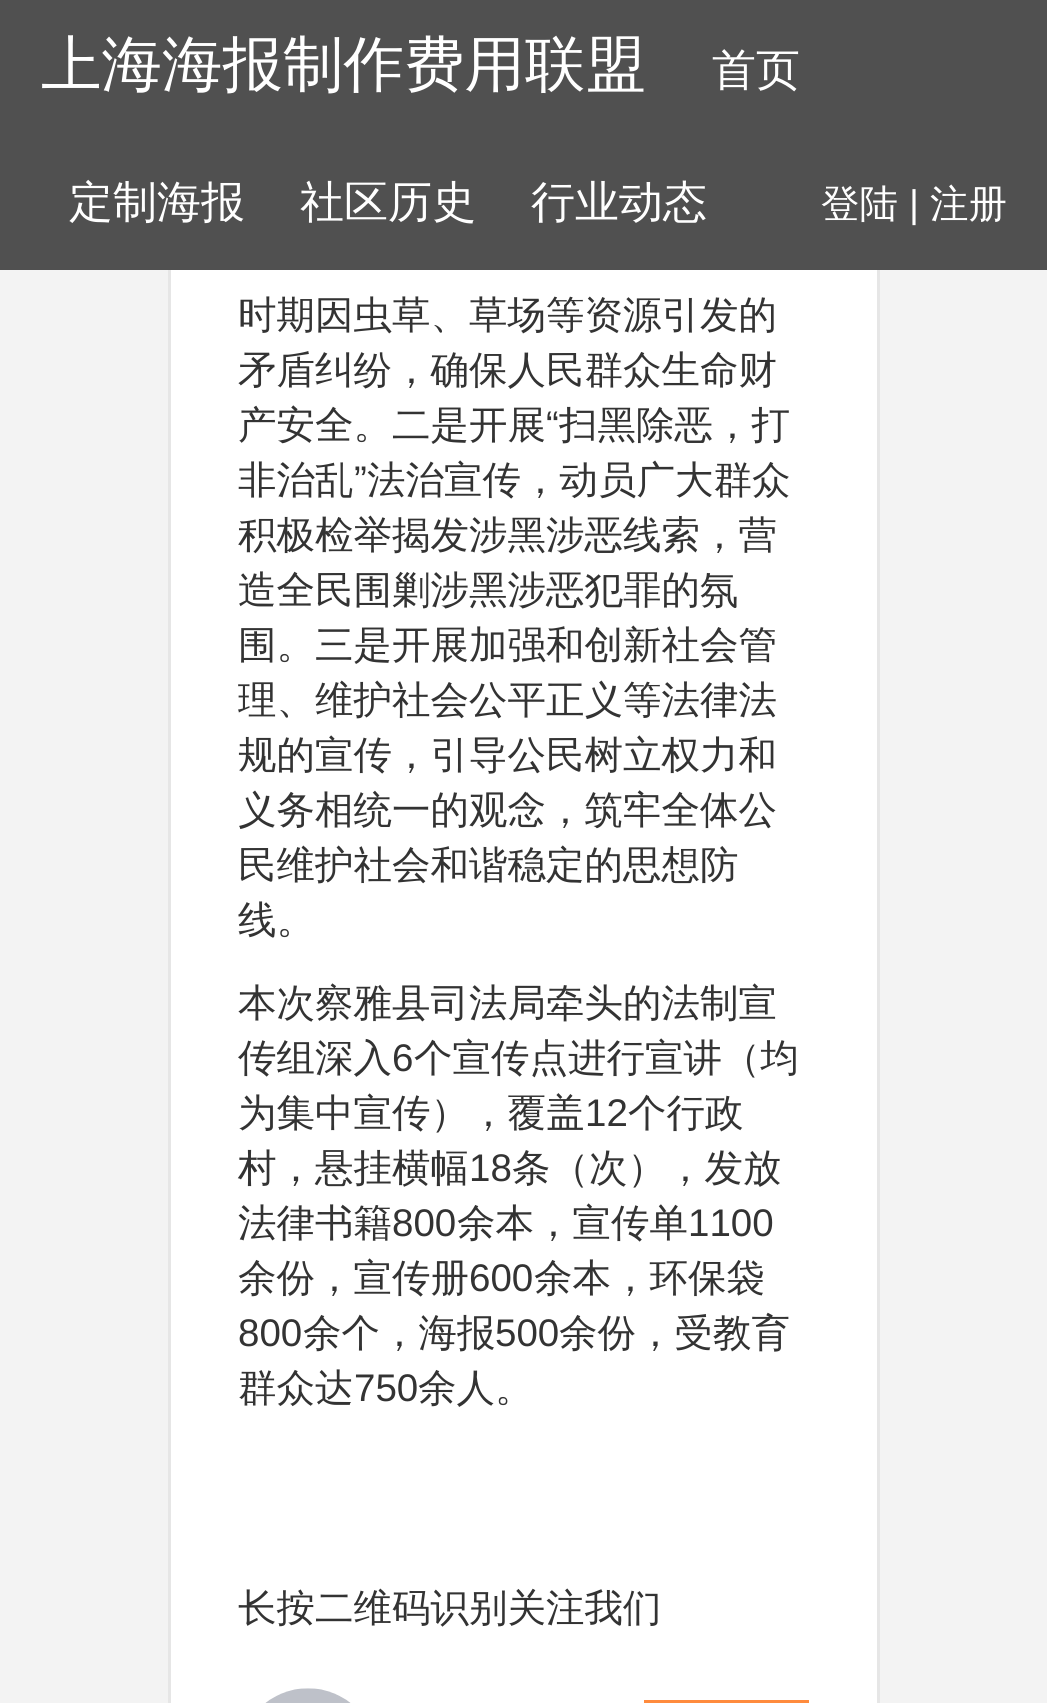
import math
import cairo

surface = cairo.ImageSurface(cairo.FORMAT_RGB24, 1047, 1703)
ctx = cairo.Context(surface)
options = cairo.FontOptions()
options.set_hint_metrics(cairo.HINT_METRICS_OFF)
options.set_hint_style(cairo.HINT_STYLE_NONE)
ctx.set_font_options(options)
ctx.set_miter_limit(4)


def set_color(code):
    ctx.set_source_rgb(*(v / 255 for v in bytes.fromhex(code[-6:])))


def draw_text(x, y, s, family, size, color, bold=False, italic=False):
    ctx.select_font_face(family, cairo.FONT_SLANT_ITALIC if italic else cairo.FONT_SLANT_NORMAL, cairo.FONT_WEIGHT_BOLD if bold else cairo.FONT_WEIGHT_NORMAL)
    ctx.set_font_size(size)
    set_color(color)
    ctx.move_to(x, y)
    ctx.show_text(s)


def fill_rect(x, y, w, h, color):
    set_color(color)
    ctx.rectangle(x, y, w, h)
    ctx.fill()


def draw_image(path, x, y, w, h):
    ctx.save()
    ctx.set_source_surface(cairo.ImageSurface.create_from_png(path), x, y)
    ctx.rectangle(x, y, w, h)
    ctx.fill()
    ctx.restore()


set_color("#f3f3f3")
ctx.paint()
fill_rect(171, 270, 706, 1433, "#ffffff")
ctx.rectangle(169.5, -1.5, 709, 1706)
set_color("#e6e6e6")
ctx.set_line_width(3)
ctx.stroke()
fill_rect(0, 0, 1047, 270, "#505050")
draw_text(41, 85, "上海海报制作费用联盟", "WenQuanYi Zen Hei Medium", 60.5, "#ffffff")
draw_text(712, 85, "首页", "WenQuanYi Zen Hei Medium", 44, "#ffffff")
draw_text(69, 217, "定制海报", "WenQuanYi Zen Hei Medium", 44, "#ffffff")
draw_text(300, 217, "社区历史", "WenQuanYi Zen Hei Medium", 44, "#ffffff")
draw_text(531, 217, "行业动态", "WenQuanYi Zen Hei Medium", 44, "#ffffff")
draw_text(821, 217, "登陆", "WenQuanYi Zen Hei Medium", 38.5, "#ffffff")
draw_text(909, 217, "|", "Liberation Sans", 38.5, "#ffffff")
draw_text(930, 217, "注册", "WenQuanYi Zen Hei Medium", 38.5, "#ffffff")
draw_text(238, 328, "时期因虫草、草场等资源引发的", "WenQuanYi Zen Hei Medium", 38.5, "#333333")
draw_text(238, 383, "矛盾纠纷，确保人民群众生命财", "WenQuanYi Zen Hei Medium", 38.5, "#333333")
draw_text(238, 438, "产安全。二是开展", "WenQuanYi Zen Hei Medium", 38.5, "#333333")
draw_text(546, 438, "“", "Liberation Sans", 38.5, "#333333")
draw_text(559, 438, "扫黑除恶，打", "WenQuanYi Zen Hei Medium", 38.5, "#333333")
draw_text(238, 493, "非治乱", "WenQuanYi Zen Hei Medium", 38.5, "#333333")
draw_text(354, 493, "”", "Liberation Sans", 38.5, "#333333")
draw_text(367, 493, "法治宣传，动员广大群众", "WenQuanYi Zen Hei Medium", 38.5, "#333333")
draw_text(238, 548, "积极检举揭发涉黑涉恶线索，营", "WenQuanYi Zen Hei Medium", 38.5, "#333333")
draw_text(238, 603, "造全民围剿涉黑涉恶犯罪的氛", "WenQuanYi Zen Hei Medium", 38.5, "#333333")
draw_text(238, 658, "围。三是开展加强和创新社会管", "WenQuanYi Zen Hei Medium", 38.5, "#333333")
draw_text(238, 713, "理、维护社会公平正义等法律法", "WenQuanYi Zen Hei Medium", 38.5, "#333333")
draw_text(238, 768, "规的宣传，引导公民树立权力和", "WenQuanYi Zen Hei Medium", 38.5, "#333333")
draw_text(238, 823, "义务相统一的观念，筑牢全体公", "WenQuanYi Zen Hei Medium", 38.5, "#333333")
draw_text(238, 878, "民维护社会和谐稳定的思想防", "WenQuanYi Zen Hei Medium", 38.5, "#333333")
draw_text(238, 933, "线。", "WenQuanYi Zen Hei Medium", 38.5, "#333333")
draw_text(238, 1016, "本次察雅县司法局牵头的法制宣", "WenQuanYi Zen Hei Medium", 38.5, "#333333")
draw_text(238, 1071, "传组深入", "WenQuanYi Zen Hei Medium", 38.5, "#333333")
draw_text(392, 1071, "6", "Liberation Sans", 38.5, "#333333")
draw_text(414, 1071, "个宣传点进行宣讲（均", "WenQuanYi Zen Hei Medium", 38.5, "#333333")
draw_text(238, 1126, "为集中宣传），覆盖", "WenQuanYi Zen Hei Medium", 38.5, "#333333")
draw_text(585, 1126, "12", "Liberation Sans", 38.5, "#333333")
draw_text(628, 1126, "个行政", "WenQuanYi Zen Hei Medium", 38.5, "#333333")
draw_text(238, 1181, "村，悬挂横幅", "WenQuanYi Zen Hei Medium", 38.5, "#333333")
draw_text(469, 1181, "18", "Liberation Sans", 38.5, "#333333")
draw_text(512, 1181, "条（次），发放", "WenQuanYi Zen Hei Medium", 38.5, "#333333")
draw_text(238, 1236, "法律书籍", "WenQuanYi Zen Hei Medium", 38.5, "#333333")
draw_text(392, 1236, "800", "Liberation Sans", 38.5, "#333333")
draw_text(457, 1236, "余本，宣传单", "WenQuanYi Zen Hei Medium", 38.5, "#333333")
draw_text(688, 1236, "1100", "Liberation Sans", 38.5, "#333333")
draw_text(238, 1291, "余份，宣传册", "WenQuanYi Zen Hei Medium", 38.5, "#333333")
draw_text(469, 1291, "600", "Liberation Sans", 38.5, "#333333")
draw_text(534, 1291, "余本，环保袋", "WenQuanYi Zen Hei Medium", 38.5, "#333333")
draw_text(238, 1346, "800", "Liberation Sans", 38.5, "#333333")
draw_text(303, 1346, "余个，海报", "WenQuanYi Zen Hei Medium", 38.5, "#333333")
draw_text(495, 1346, "500", "Liberation Sans", 38.5, "#333333")
draw_text(559, 1346, "余份，受教育", "WenQuanYi Zen Hei Medium", 38.5, "#333333")
draw_text(238, 1401, "群众达", "WenQuanYi Zen Hei Medium", 38.5, "#333333")
draw_text(354, 1401, "750", "Liberation Sans", 38.5, "#333333")
draw_text(418, 1401, "余人。", "WenQuanYi Zen Hei Medium", 38.5, "#333333")
draw_text(238, 1621, "长按二维码识别关注我们", "WenQuanYi Zen Hei Medium", 38.5, "#333333")
draw_image("assets/img1.png", 265, 1688, 86, 15)
fill_rect(644, 1700, 165, 3, "#ff8b3d")
surface.write_to_png("output.png")
